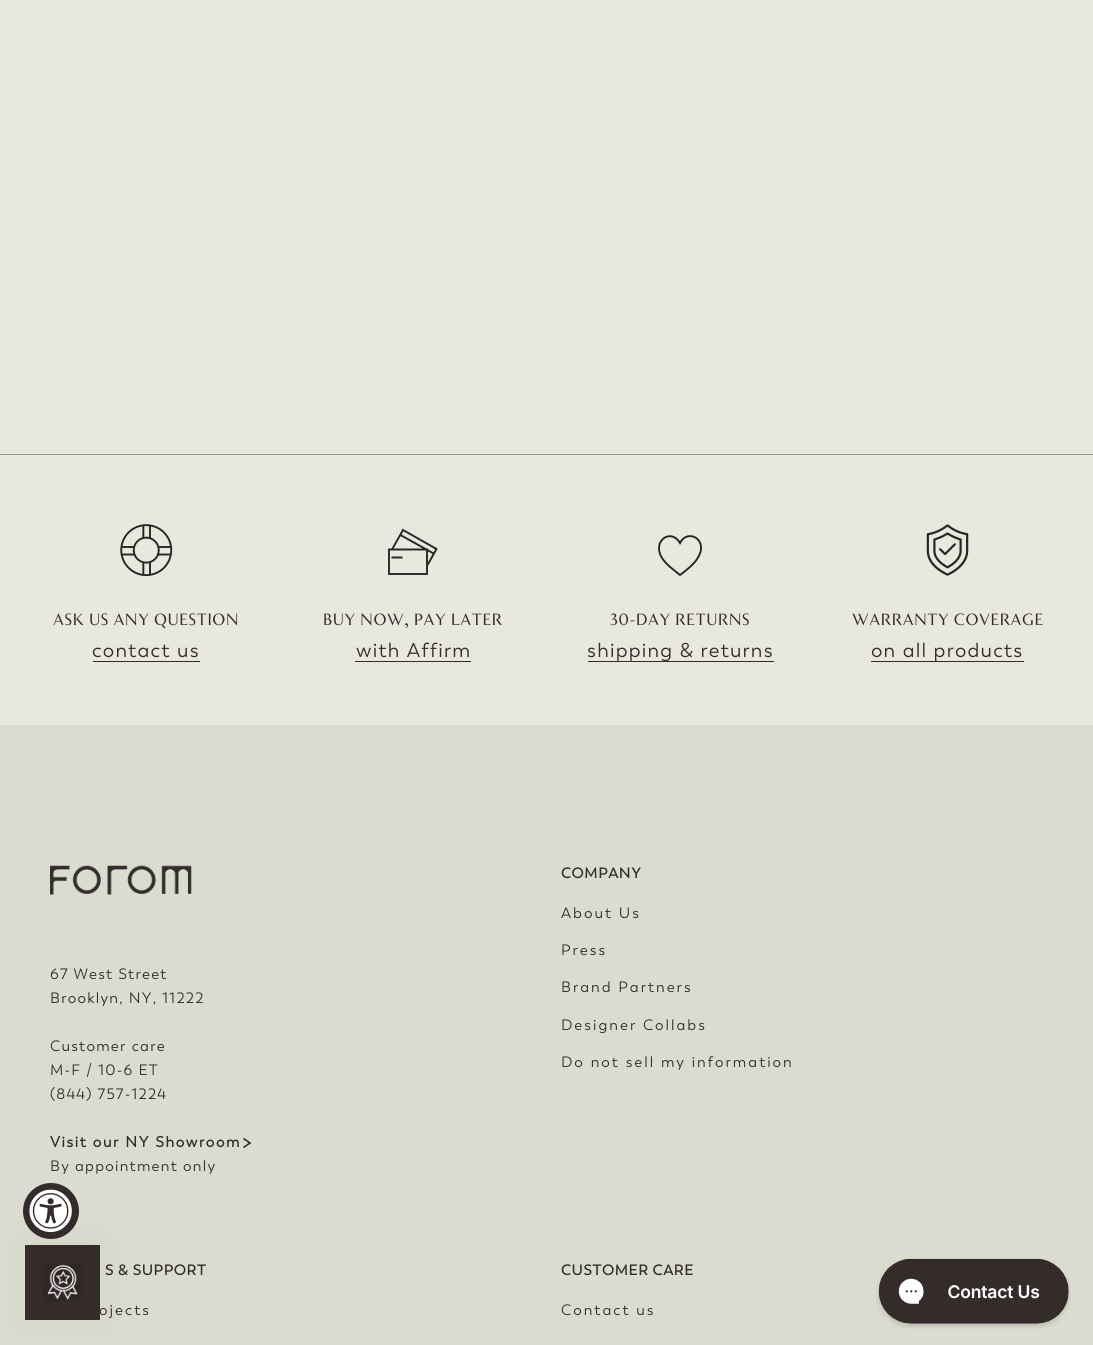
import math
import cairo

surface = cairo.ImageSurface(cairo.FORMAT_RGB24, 1093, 1345)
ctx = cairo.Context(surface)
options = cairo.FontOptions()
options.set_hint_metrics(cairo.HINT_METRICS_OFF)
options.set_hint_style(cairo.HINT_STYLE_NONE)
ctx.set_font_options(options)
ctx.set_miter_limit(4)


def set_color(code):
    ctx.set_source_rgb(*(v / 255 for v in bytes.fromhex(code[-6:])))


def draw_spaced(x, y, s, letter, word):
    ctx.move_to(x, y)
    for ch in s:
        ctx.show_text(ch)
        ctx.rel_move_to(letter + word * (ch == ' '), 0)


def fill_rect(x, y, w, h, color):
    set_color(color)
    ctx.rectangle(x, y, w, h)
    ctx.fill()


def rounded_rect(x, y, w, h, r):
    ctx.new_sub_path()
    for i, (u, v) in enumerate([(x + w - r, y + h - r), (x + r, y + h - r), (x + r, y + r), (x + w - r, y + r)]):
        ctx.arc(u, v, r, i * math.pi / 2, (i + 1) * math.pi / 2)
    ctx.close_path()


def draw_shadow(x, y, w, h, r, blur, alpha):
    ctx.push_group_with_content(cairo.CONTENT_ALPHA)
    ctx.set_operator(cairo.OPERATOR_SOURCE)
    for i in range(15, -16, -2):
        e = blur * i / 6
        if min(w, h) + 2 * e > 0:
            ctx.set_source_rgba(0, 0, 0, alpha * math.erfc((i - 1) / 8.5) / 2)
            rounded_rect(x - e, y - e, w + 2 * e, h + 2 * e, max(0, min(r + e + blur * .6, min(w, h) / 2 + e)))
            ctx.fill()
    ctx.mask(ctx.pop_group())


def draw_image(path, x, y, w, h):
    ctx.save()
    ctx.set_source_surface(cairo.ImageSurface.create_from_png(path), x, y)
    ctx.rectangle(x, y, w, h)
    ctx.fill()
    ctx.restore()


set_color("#e9e8df")
ctx.paint()
fill_rect(0, 454, 1093, 1, "#959591")
draw_image("assets/img1.png", 120, 524, 53, 52)
ctx.select_font_face("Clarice")
ctx.set_font_size(16.25)
set_color("#332c2b")
draw_spaced(53, 625, "ASK US ANY QUESTION", 0.6, 0)
ctx.select_font_face("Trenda")
ctx.set_font_size(20)
draw_spaced(92, 657, "contact us", 1.25, 0)
fill_rect(93, 661, 107, 1, "#332c2b")
ctx.new_path()
ctx.move_to(427, 549.5)
ctx.line_to(389, 549.5)
ctx.line_to(389, 574)
ctx.line_to(427, 574)
ctx.close_path()
ctx.move_to(399.5, 534.5)
ctx.line_to(434.5, 554)
ctx.move_to(391.5, 557.5)
ctx.line_to(402.5, 557.5)
ctx.move_to(392, 549.5)
ctx.line_to(403, 530)
ctx.line_to(436.5, 549)
ctx.line_to(427.5, 565)
set_color("#252525")
ctx.set_line_width(1.9)
ctx.stroke()
ctx.select_font_face("Clarice")
ctx.set_font_size(16.25)
set_color("#332c2b")
draw_spaced(323, 625, "BUY NOW, PAY LATER", 0.6, 0)
ctx.select_font_face("Trenda")
ctx.set_font_size(20)
draw_spaced(356, 657, "with Affirm", 1.25, 0)
fill_rect(355, 661, 116, 1, "#332c2b")
ctx.new_path()
ctx.move_to(680, 543)
ctx.curve_to(687.5, 528, 709, 539.5, 698, 557.5)
ctx.curve_to(694, 564.5, 686.5, 570, 680, 575)
ctx.curve_to(674, 570, 666.5, 565, 662, 558)
ctx.curve_to(651.5, 541, 671, 527.5, 680, 543)
ctx.close_path()
set_color("#252525")
ctx.stroke()
ctx.select_font_face("Clarice")
ctx.set_font_size(16.25)
set_color("#332c2b")
draw_spaced(610, 625, "30-DAY RETURNS", 0.6, 0)
fill_rect(588, 661, 186, 1, "#332c2b")
ctx.select_font_face("Trenda")
ctx.set_font_size(20)
draw_spaced(587, 657, "shipping & returns", 1.25, 0)
draw_image("assets/img2.png", 926, 524, 43, 52)
ctx.select_font_face("Clarice")
ctx.set_font_size(16.25)
draw_spaced(852, 625, "WARRANTY COVERAGE", 0.6, 0)
ctx.select_font_face("Trenda")
ctx.set_font_size(20)
draw_spaced(871, 657, "on all products", 1.25, 0)
fill_rect(871, 661, 153, 1, "#332c2b")
fill_rect(0, 725, 1093, 620, "#dadccf")
draw_image("assets/img3.png", 50, 865, 142, 30)
ctx.set_font_size(15)
set_color("#332c2b")
draw_spaced(50, 979, "67 West Street", 1.25, 0)
draw_spaced(50, 1003, "Brooklyn, NY, 11222", 1.25, 0)
draw_spaced(50, 1051, "Customer care", 1.25, 0)
draw_spaced(50, 1075, "M-F / 10-6 ET", 1.25, 0)
draw_spaced(50, 1099, "(844) 757-1224", 1.25, 0)
ctx.select_font_face("Trenda", cairo.FONT_SLANT_NORMAL, cairo.FONT_WEIGHT_BOLD)
draw_spaced(50, 1147, "Visit our NY Showroom", 1.6, 0)
ctx.new_path()
ctx.move_to(243.5, 1138.5)
ctx.line_to(250, 1143)
ctx.line_to(243.5, 1147.5)
set_color("#322d2b")
ctx.set_line_width(1.6)
ctx.stroke()
ctx.select_font_face("Trenda")
set_color("#332c2b")
draw_spaced(50, 1171, "By appointment only", 1.25, 0)
ctx.select_font_face("Trenda SemiBold")
draw_spaced(561, 878, "COMPANY", 0.4, 0)
ctx.select_font_face("Trenda")
draw_spaced(561, 918, "About Us", 2, 0)
draw_spaced(561, 955, "Press", 2, 0)
draw_spaced(561, 992, "Brand Partners", 2, 0)
draw_spaced(561, 1030, "Designer Collabs", 2, 0)
draw_spaced(561, 1067, "Do not sell my information", 2, 0)
ctx.select_font_face("Trenda SemiBold")
draw_spaced(105, 1275, "S & SUPPORT", 0.4, 0)
ctx.select_font_face("Trenda")
draw_spaced(99, 1315, "ojects", 2, 0)
ctx.select_font_face("Trenda SemiBold")
draw_spaced(561, 1275, "CUSTOMER CARE", 0.4, 0)
ctx.select_font_face("Trenda")
draw_spaced(561, 1315, "Contact us", 2, 0)
ctx.new_path()
ctx.arc(51, 1211, 28, 0, 2 * math.pi)
ctx.fill()
draw_image("assets/img4.png", 29, 1189, 43, 44)
set_color("#000000")
draw_shadow(25, 1245, 75, 75, 0, 15.5, 0.05)
draw_image("assets/img5.png", 25, 1245, 75, 75)
draw_image("assets/img6.png", 876, 1258, 195, 71)
surface.write_to_png("output.png")
